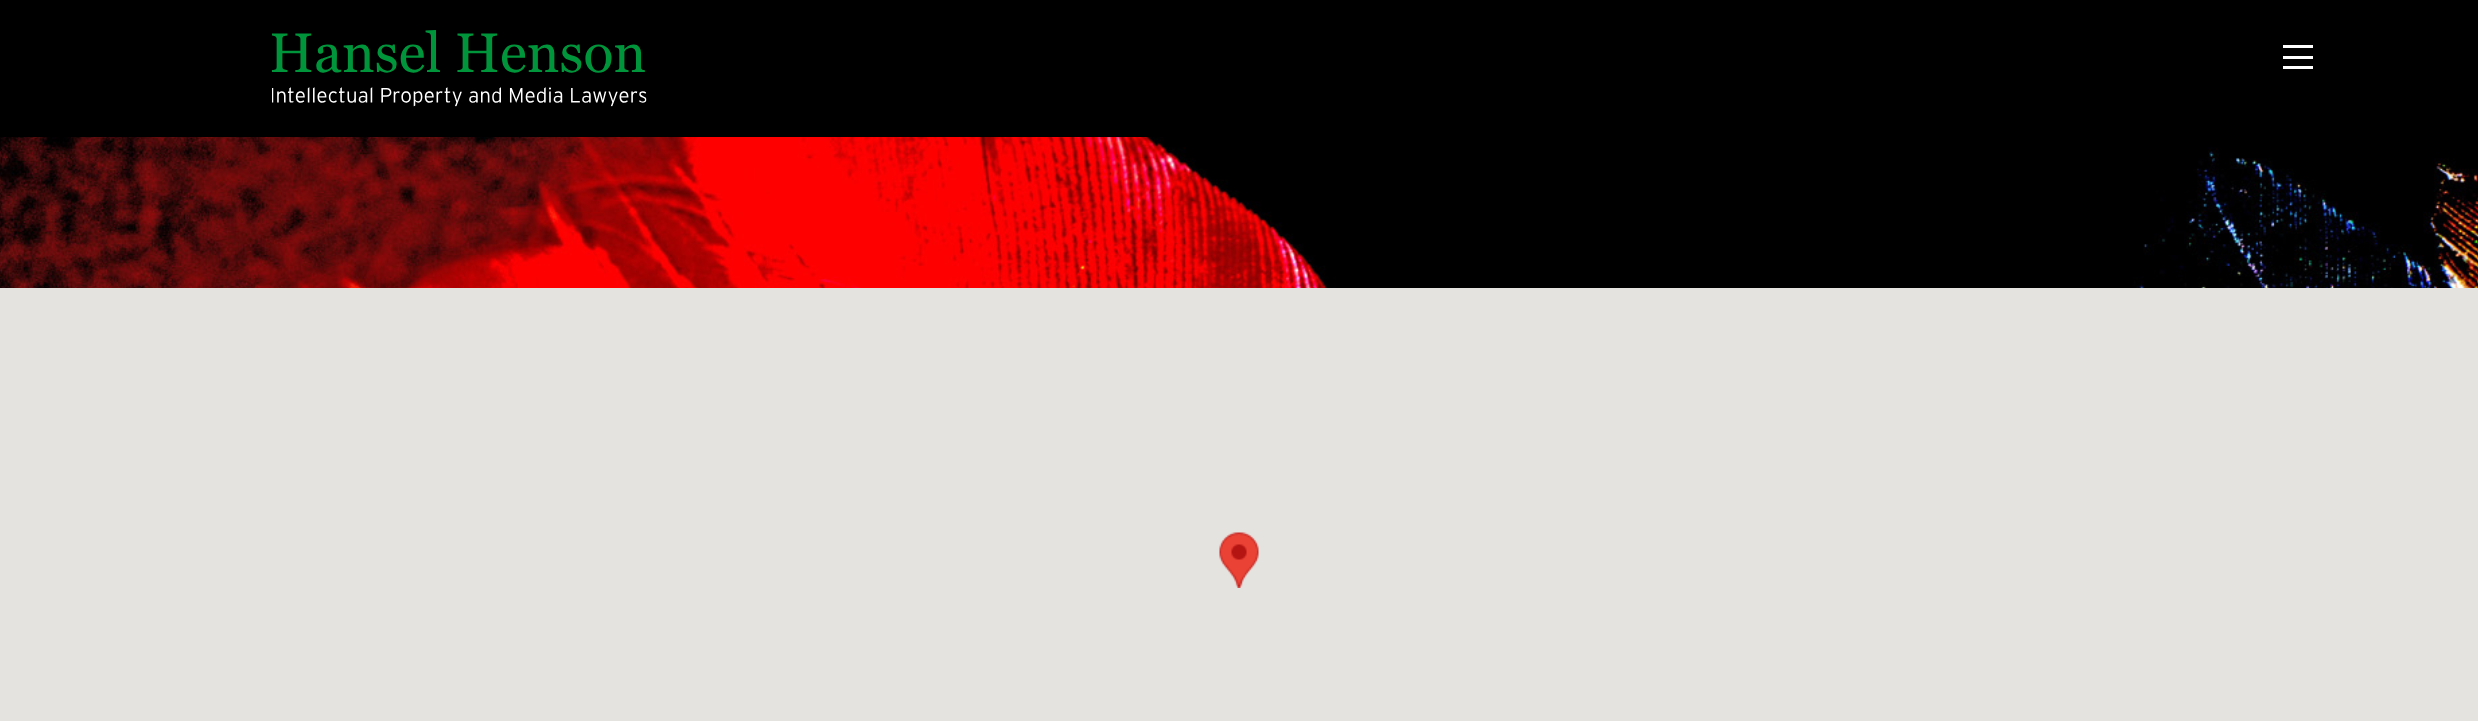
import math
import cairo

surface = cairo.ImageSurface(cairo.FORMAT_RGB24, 2478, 721)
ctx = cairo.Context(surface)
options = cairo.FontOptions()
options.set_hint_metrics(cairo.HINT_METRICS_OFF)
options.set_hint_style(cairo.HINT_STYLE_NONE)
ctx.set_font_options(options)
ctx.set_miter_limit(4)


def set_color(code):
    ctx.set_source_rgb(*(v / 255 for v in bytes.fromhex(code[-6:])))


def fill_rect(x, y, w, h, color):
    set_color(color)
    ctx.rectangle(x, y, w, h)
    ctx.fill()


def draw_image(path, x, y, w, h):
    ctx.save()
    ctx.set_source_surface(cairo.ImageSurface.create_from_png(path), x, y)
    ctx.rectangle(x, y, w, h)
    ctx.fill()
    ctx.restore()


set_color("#ffffff")
ctx.paint()
fill_rect(0, 0, 2478, 137, "#000000")
draw_image("assets/img1.png", 272, 30, 375, 77)
fill_rect(2283, 66, 30, 3, "#fefefe")
fill_rect(2283, 56, 30, 3, "#fefefe")
fill_rect(2283, 45, 30, 3, "#fefefe")
draw_image("assets/img2.png", 0, 137, 2478, 151)
fill_rect(0, 288, 2478, 433, "#e5e3df")
draw_image("assets/img3.png", 1219, 532, 40, 56)
surface.write_to_png("output.png")
